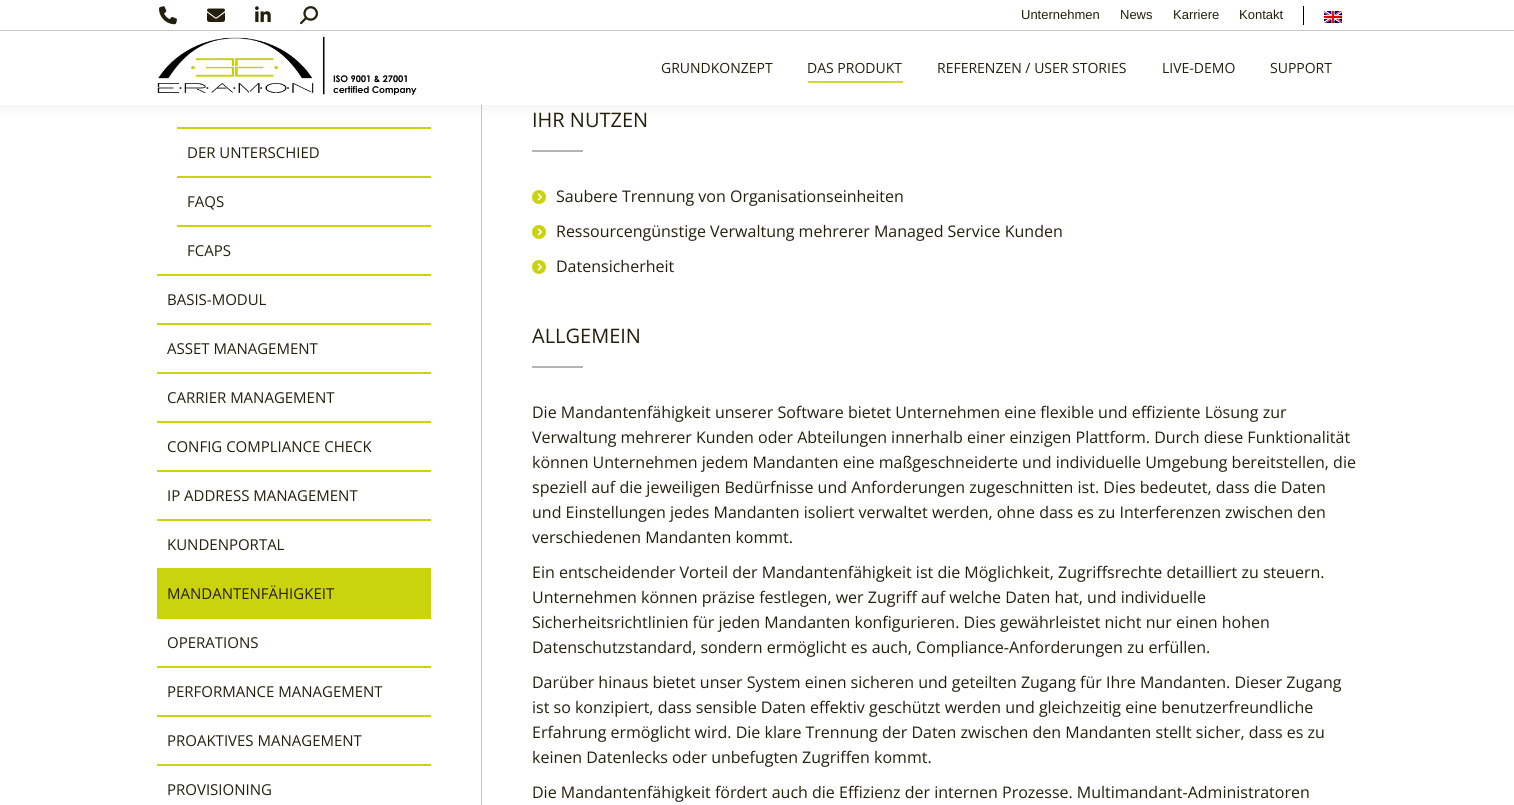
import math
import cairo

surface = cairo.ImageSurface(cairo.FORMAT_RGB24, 1514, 805)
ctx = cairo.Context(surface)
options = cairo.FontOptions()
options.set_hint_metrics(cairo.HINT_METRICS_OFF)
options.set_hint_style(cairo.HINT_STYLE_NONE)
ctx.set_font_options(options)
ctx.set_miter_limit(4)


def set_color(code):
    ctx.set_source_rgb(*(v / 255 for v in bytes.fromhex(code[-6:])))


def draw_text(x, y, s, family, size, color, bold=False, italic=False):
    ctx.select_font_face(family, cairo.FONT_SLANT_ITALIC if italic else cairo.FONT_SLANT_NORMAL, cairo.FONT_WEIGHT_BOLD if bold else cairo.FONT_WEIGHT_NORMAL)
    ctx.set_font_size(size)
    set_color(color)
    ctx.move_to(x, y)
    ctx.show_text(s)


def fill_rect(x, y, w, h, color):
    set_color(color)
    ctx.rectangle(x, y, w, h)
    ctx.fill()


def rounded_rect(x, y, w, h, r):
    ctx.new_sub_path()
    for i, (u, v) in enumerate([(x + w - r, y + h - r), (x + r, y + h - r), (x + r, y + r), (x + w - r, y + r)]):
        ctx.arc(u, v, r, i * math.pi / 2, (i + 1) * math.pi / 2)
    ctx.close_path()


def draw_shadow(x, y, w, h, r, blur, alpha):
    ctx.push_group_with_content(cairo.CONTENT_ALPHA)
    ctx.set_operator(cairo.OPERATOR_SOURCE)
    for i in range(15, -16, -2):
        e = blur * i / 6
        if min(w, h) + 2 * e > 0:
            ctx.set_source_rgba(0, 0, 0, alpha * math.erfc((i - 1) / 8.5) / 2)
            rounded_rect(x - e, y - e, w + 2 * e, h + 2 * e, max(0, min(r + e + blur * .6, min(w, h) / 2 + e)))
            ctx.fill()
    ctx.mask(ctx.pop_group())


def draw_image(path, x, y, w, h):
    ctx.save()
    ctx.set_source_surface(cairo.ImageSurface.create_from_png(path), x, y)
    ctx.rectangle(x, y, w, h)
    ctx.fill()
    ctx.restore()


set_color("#ffffff")
ctx.paint()
fill_rect(481, 105, 1, 700, "#c9c9c9")
fill_rect(177, 127, 254, 2, "#cad30b")
set_color("#000000")
draw_shadow(-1, -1, 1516, 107, 0, 7.5, 0.07)
fill_rect(0, 0, 1514, 105, "#ffffff")
draw_image("assets/img1.png", 159, 6, 18, 19)
draw_image("assets/img2.png", 207, 8, 18, 14)
draw_image("assets/img3.png", 255, 6, 16, 16)
draw_image("assets/img4.png", 300, 6, 18, 19)
draw_text(1021, 19, "Unternehmen", "Liberation Sans", 13, "#241f0c")
draw_text(1120, 19, "News", "Liberation Sans", 13, "#241f0c")
draw_text(1173, 19, "Karriere", "Liberation Sans", 13, "#241f0c")
draw_text(1239, 19, "Kontakt", "Liberation Sans", 13, "#241f0c")
fill_rect(1303, 6, 1, 19, "#000000")
draw_image("assets/img5.png", 1324, 11, 18, 12)
fill_rect(0, 30, 1514, 1, "#c6c6c6")
draw_image("assets/img6.png", 157, 36, 260, 59)
draw_text(661, 73, "GRUNDKONZEPT", "Open Sans", 14, "#241f0c")
draw_text(807, 73, "DAS PRODUKT", "Open Sans", 14, "#241f0c")
fill_rect(808, 81, 95, 2, "#d2da30")
draw_text(937, 73, "REFERENZEN / USER STORIES", "Open Sans", 14, "#241f0c")
draw_text(1162, 73, "LIVE-DEMO", "Open Sans", 14, "#241f0c")
draw_text(1270, 73, "SUPPORT", "Open Sans", 14, "#241f0c")
draw_text(187, 158, "DER UNTERSCHIED", "Open Sans", 15, "#241f0c")
fill_rect(177, 176, 254, 2, "#cad30b")
draw_text(187, 207, "FAQS", "Open Sans", 15, "#241f0c")
fill_rect(177, 225, 254, 2, "#cad30b")
draw_text(187, 256, "FCAPS", "Open Sans", 15, "#241f0c")
fill_rect(157, 274, 274, 2, "#cad30b")
draw_text(167, 305, "BASIS-MODUL", "Open Sans", 15, "#241f0c")
fill_rect(157, 323, 274, 2, "#cad30b")
draw_text(167, 354, "ASSET MANAGEMENT", "Open Sans", 15, "#241f0c")
fill_rect(157, 372, 274, 2, "#cad30b")
draw_text(167, 403, "CARRIER MANAGEMENT", "Open Sans", 15, "#241f0c")
fill_rect(157, 421, 274, 2, "#cad30b")
draw_text(167, 452, "CONFIG COMPLIANCE CHECK", "Open Sans", 15, "#241f0c")
fill_rect(157, 470, 274, 2, "#cad30b")
draw_text(167, 501, "IP ADDRESS MANAGEMENT", "Open Sans", 15, "#241f0c")
fill_rect(157, 519, 274, 2, "#cad30b")
draw_text(167, 550, "KUNDENPORTAL", "Open Sans", 15, "#241f0c")
fill_rect(157, 568, 274, 51, "#cad30b")
draw_text(167, 599, "MANDANTENFÄHIGKEIT", "Open Sans", 15, "#241f0c")
draw_text(167, 648, "OPERATIONS", "Open Sans", 15, "#241f0c")
fill_rect(157, 666, 274, 2, "#cad30b")
draw_text(167, 697, "PERFORMANCE MANAGEMENT", "Open Sans", 15, "#241f0c")
fill_rect(157, 715, 274, 2, "#cad30b")
draw_text(167, 746, "PROAKTIVES MANAGEMENT", "Open Sans", 15, "#241f0c")
fill_rect(157, 764, 274, 2, "#cad30b")
draw_text(167, 795, "PROVISIONING", "Open Sans", 15, "#241f0c")
draw_text(532, 127, "IHR NUTZEN", "Open Sans", 20, "#241f0c")
fill_rect(532, 150, 51, 2, "#b4b4b4")
set_color("#cad30b")
ctx.new_path()
ctx.arc(539, 197, 7, 0, 2 * math.pi)
ctx.fill()
draw_text(556, 202, "Saubere Trennung von Organisationseinheiten", "Open Sans", 16, "#241f0c")
draw_image("assets/img7.png", 537, 193, 6, 8)
set_color("#cad30b")
ctx.arc(539, 232, 7, 0, 2 * math.pi)
ctx.fill()
draw_text(556, 237, "Ressourcengünstige Verwaltung mehrerer Managed Service Kunden", "Open Sans", 16, "#241f0c")
draw_image("assets/img7.png", 537, 228, 6, 8)
set_color("#cad30b")
ctx.arc(539, 267, 7, 0, 2 * math.pi)
ctx.fill()
draw_text(556, 272, "Datensicherheit", "Open Sans", 16, "#241f0c")
draw_image("assets/img7.png", 537, 263, 6, 8)
draw_text(532, 343, "ALLGEMEIN", "Open Sans", 20, "#241f0c")
fill_rect(532, 366, 51, 2, "#b4b4b4")
draw_text(532, 418, "Die Mandantenfähigkeit unserer Software bietet Unternehmen eine flexible und effiziente Lösung zur", "Open Sans", 16, "#241f0c")
draw_text(532, 443, "Verwaltung mehrerer Kunden oder Abteilungen innerhalb einer einzigen Plattform. Durch diese Funktionalität", "Open Sans", 16, "#241f0c")
draw_text(532, 468, "können Unternehmen jedem Mandanten eine maßgeschneiderte und individuelle Umgebung bereitstellen, die", "Open Sans", 16, "#241f0c")
draw_text(532, 493, "speziell auf die jeweiligen Bedürfnisse und Anforderungen zugeschnitten ist. Dies bedeutet, dass die Daten", "Open Sans", 16, "#241f0c")
draw_text(532, 518, "und Einstellungen jedes Mandanten isoliert verwaltet werden, ohne dass es zu Interferenzen zwischen den", "Open Sans", 16, "#241f0c")
draw_text(532, 543, "verschiedenen Mandanten kommt.", "Open Sans", 16, "#241f0c")
draw_text(532, 578, "Ein entscheidender Vorteil der Mandantenfähigkeit ist die Möglichkeit, Zugriffsrechte detailliert zu steuern.", "Open Sans", 16, "#241f0c")
draw_text(532, 603, "Unternehmen können präzise festlegen, wer Zugriff auf welche Daten hat, und individuelle", "Open Sans", 16, "#241f0c")
draw_text(532, 628, "Sicherheitsrichtlinien für jeden Mandanten konfigurieren. Dies gewährleistet nicht nur einen hohen", "Open Sans", 16, "#241f0c")
draw_text(532, 653, "Datenschutzstandard, sondern ermöglicht es auch, Compliance-Anforderungen zu erfüllen.", "Open Sans", 16, "#241f0c")
draw_text(532, 688, "Darüber hinaus bietet unser System einen sicheren und geteilten Zugang für Ihre Mandanten. Dieser Zugang", "Open Sans", 16, "#241f0c")
draw_text(532, 713, "ist so konzipiert, dass sensible Daten effektiv geschützt werden und gleichzeitig eine benutzerfreundliche", "Open Sans", 16, "#241f0c")
draw_text(532, 738, "Erfahrung ermöglicht wird. Die klare Trennung der Daten zwischen den Mandanten stellt sicher, dass es zu", "Open Sans", 16, "#241f0c")
draw_text(532, 763, "keinen Datenlecks oder unbefugten Zugriffen kommt.", "Open Sans", 16, "#241f0c")
draw_text(532, 798, "Die Mandantenfähigkeit fördert auch die Effizienz der internen Prozesse. Multimandant-Administratoren", "Open Sans", 16, "#241f0c")
surface.write_to_png("output.png")
